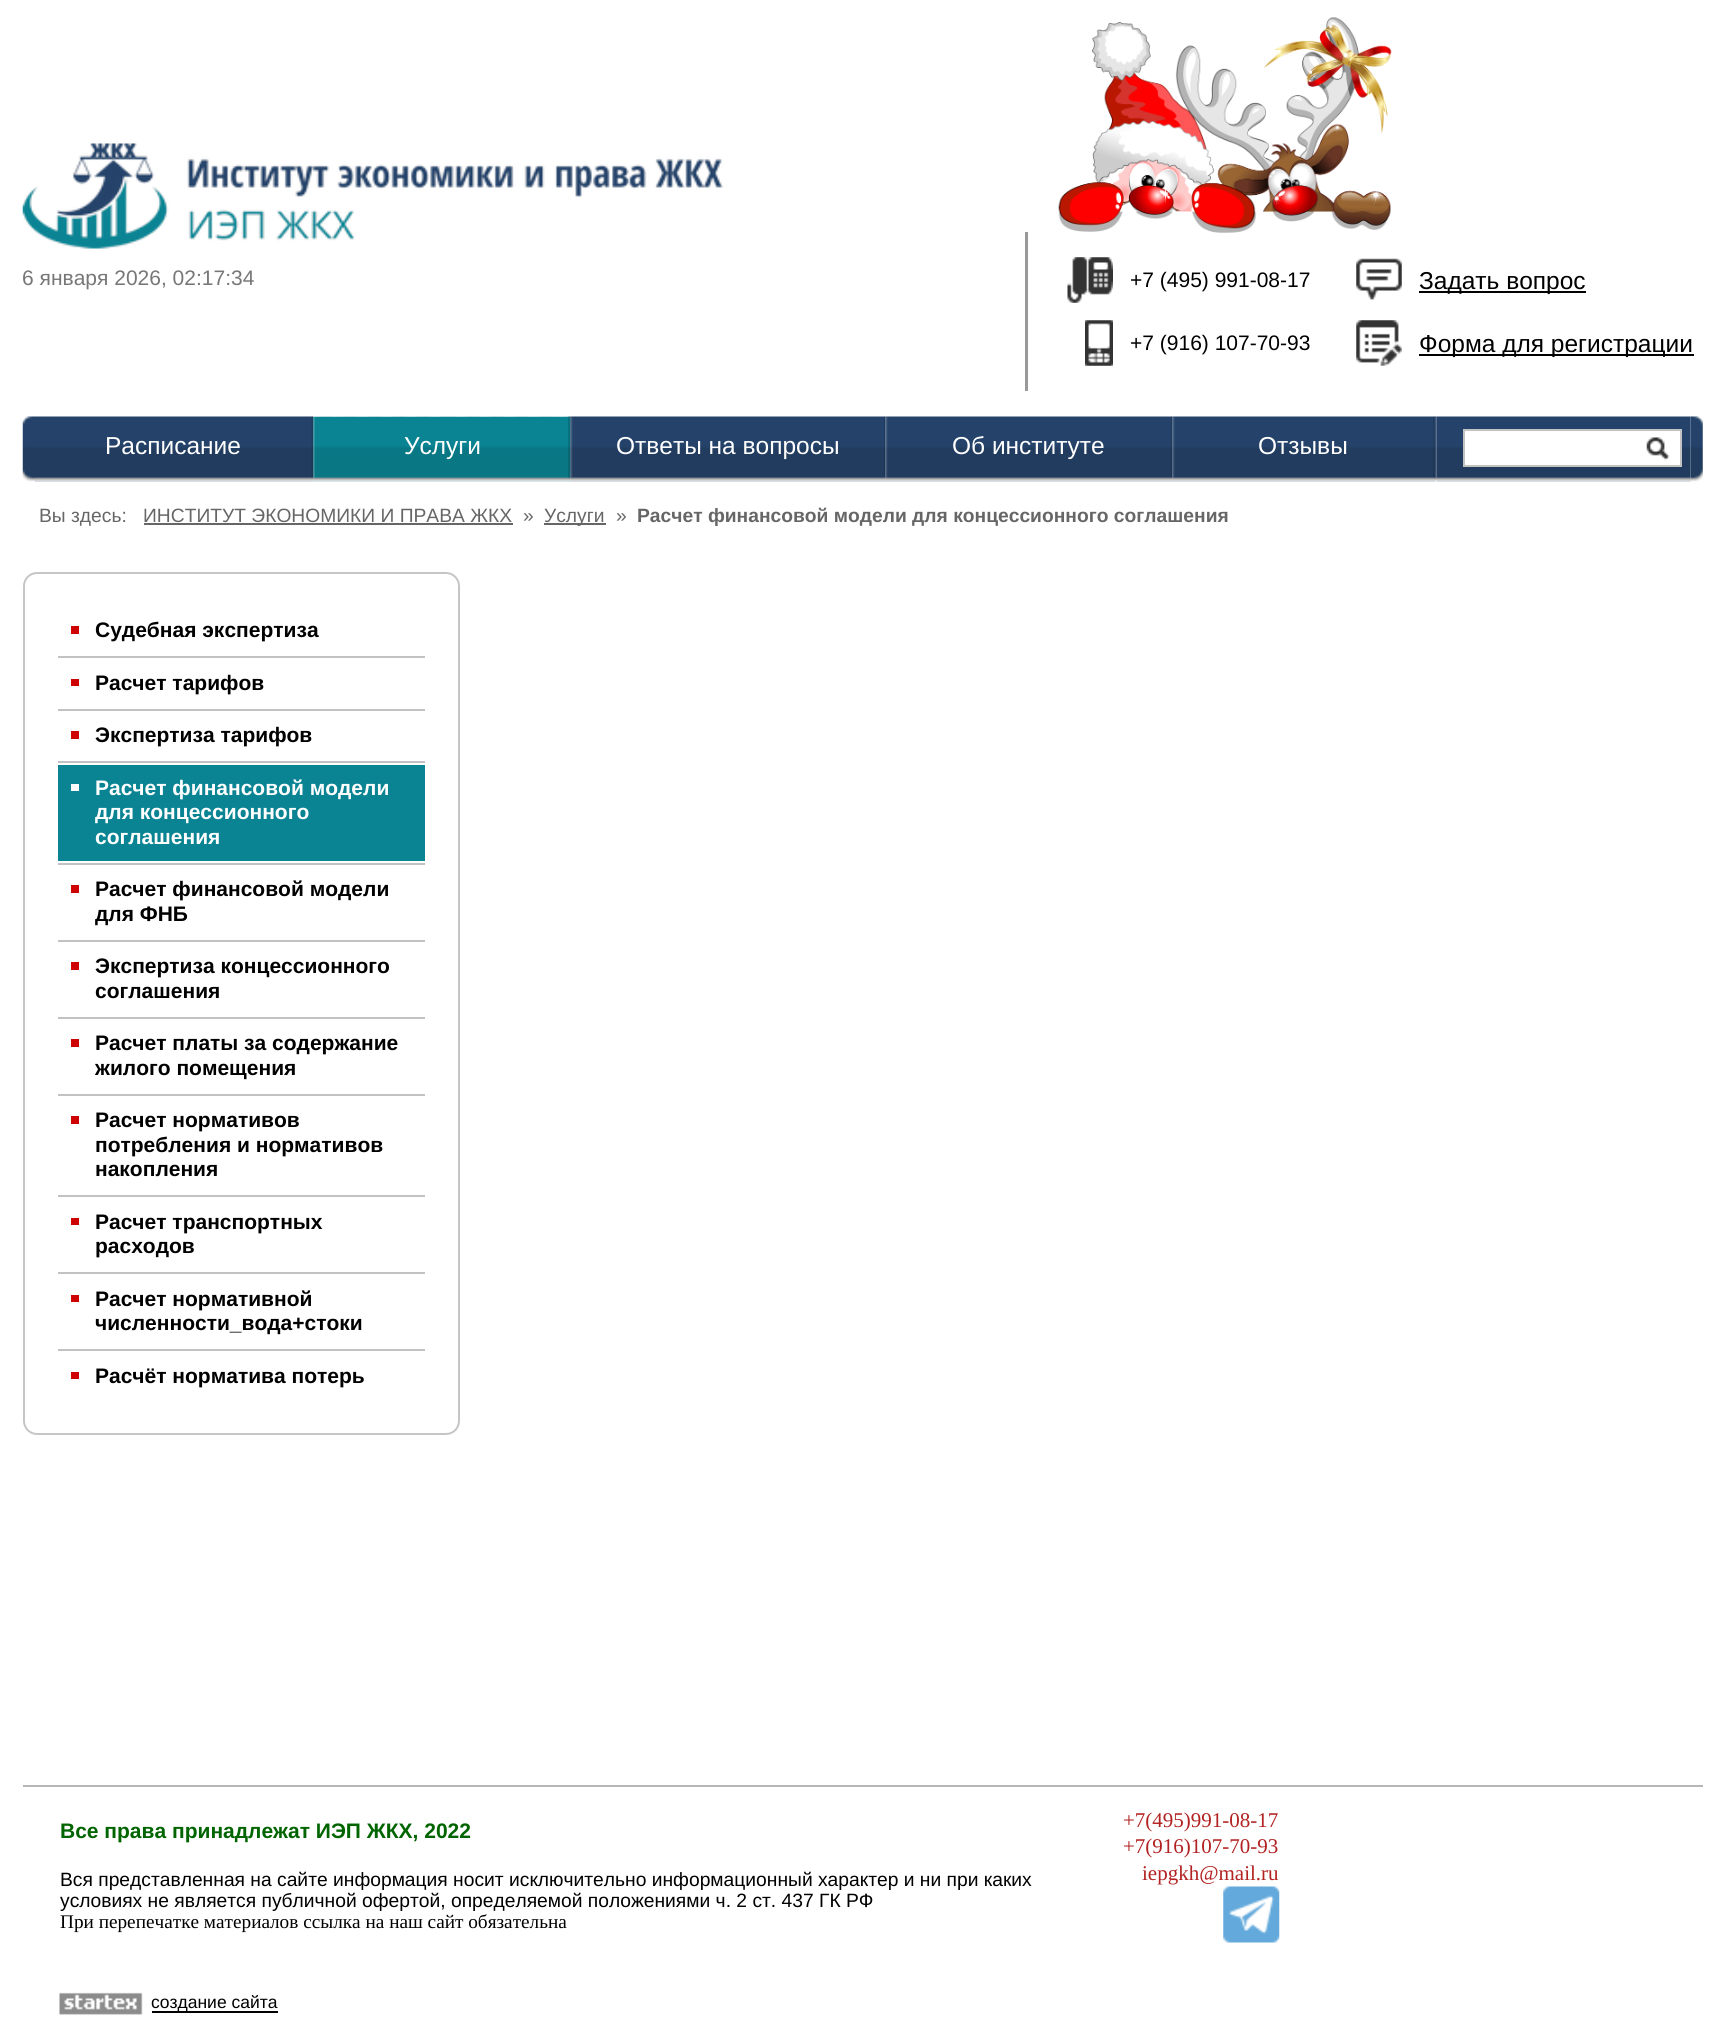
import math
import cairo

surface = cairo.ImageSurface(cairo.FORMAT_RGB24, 1723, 2032)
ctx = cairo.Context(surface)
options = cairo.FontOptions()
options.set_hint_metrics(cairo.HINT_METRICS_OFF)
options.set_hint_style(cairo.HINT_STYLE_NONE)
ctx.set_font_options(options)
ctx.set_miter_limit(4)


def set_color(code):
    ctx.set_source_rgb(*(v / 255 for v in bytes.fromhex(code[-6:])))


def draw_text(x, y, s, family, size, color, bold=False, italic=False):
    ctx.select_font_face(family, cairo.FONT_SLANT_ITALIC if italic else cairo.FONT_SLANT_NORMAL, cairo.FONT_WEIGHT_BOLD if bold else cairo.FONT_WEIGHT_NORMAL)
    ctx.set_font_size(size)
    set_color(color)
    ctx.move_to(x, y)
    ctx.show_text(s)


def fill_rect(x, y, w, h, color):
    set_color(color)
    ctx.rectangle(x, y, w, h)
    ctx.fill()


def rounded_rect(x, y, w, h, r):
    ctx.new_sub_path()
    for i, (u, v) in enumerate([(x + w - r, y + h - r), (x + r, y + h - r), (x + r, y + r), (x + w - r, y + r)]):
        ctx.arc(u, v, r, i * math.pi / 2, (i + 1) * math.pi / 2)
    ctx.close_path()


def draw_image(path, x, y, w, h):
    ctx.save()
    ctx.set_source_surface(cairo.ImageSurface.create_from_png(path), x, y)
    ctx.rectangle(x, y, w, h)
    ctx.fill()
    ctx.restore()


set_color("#ffffff")
ctx.paint()
draw_image("assets/img1.png", 22, 143, 701, 106)
draw_text(22, 285, "6 января 2026, 02:17:34", "Liberation Sans", 21, "#777777")
draw_image("assets/img2.png", 1058, 17, 334, 216)
fill_rect(1025, 232, 3, 159, "#999999")
draw_image("assets/img3.png", 1067, 257, 46, 46)
draw_text(1130, 287, "+7 (495) 991-08-17", "Liberation Sans", 21, "#000000")
draw_image("assets/img4.png", 1356, 258, 46, 42)
fill_rect(1419, 291, 167, 2, "#000000")
draw_text(1419, 289, "Задать вопрос", "Liberation Sans", 24.5, "#000000")
draw_image("assets/img5.png", 1085, 320, 28, 46)
draw_text(1130, 350, "+7 (916) 107-70-93", "Liberation Sans", 21, "#000000")
draw_image("assets/img6.png", 1356, 320, 46, 46)
fill_rect(1419, 354, 275, 2, "#000000")
draw_text(1419, 352, "Форма для регистрации", "Liberation Sans", 24.5, "#000000")
draw_image("assets/img7.png", 22, 416, 13, 66)
draw_image("assets/img8.png", 1435, 416, 2, 66)
draw_image("assets/img9.png", 1435, 416, 2, 62)
draw_image("assets/img10.png", 35, 416, 279, 66)
draw_text(105, 454, "Расписание", "Liberation Sans", 24.5, "#ffffff")
draw_image("assets/img11.png", 311, 416, 2, 62)
draw_image("assets/img12.png", 313, 416, 258, 66)
draw_image("assets/img13.png", 313, 416, 2, 62)
draw_text(404, 454, "Услуги", "Liberation Sans", 24.5, "#ffffff")
ctx.set_source_rgba(0, 0, 0, 0.14)
ctx.rectangle(568, 416, 3, 62)
ctx.fill()
draw_image("assets/img14.png", 570, 416, 316, 66)
draw_image("assets/img15.png", 571, 416, 2, 62)
draw_text(616, 454, "Ответы на вопросы", "Liberation Sans", 24.5, "#ffffff")
draw_image("assets/img16.png", 884, 416, 1, 62)
draw_image("assets/img17.png", 885, 416, 288, 66)
draw_image("assets/img15.png", 886, 416, 2, 62)
draw_text(952, 454, "Об институте", "Liberation Sans", 24.5, "#ffffff")
draw_image("assets/img16.png", 1171, 416, 1, 62)
draw_image("assets/img18.png", 1172, 416, 263, 66)
draw_image("assets/img15.png", 1173, 416, 2, 62)
draw_text(1258, 454, "Отзывы", "Liberation Sans", 24.5, "#ffffff")
draw_image("assets/img19.png", 1433, 416, 2, 62)
draw_image("assets/img20.png", 1436, 416, 255, 66)
ctx.rectangle(1464, 430, 217, 36)
ctx.fill_preserve()
set_color("#c3c3c3")
ctx.stroke()
draw_image("assets/img21.png", 1646, 437, 24, 24)
draw_image("assets/img22.png", 1690, 416, 13, 66)
draw_text(39, 522, "Вы здесь:", "Liberation Sans", 19.25, "#666666")
draw_text(143, 522, "ИНСТИТУТ ЭКОНОМИКИ И ПРАВА ЖКХ", "Liberation Sans", 19.25, "#666666")
fill_rect(144, 523, 369, 2, "#666666")
draw_text(523, 522, "»", "Liberation Sans", 19.25, "#666666")
fill_rect(544, 523, 62, 2, "#666666")
draw_text(544, 522, "Услуги", "Liberation Sans", 19.25, "#666666")
draw_text(616, 522, "»", "Liberation Sans", 19.25, "#666666")
draw_text(637, 522, "Расчет финансовой модели для концессионного соглашения", "Liberation Sans", 19.25, "#666666", bold=True)
rounded_rect(24, 573, 435, 861, 13)
set_color("#c6c6c6")
ctx.stroke()
fill_rect(71, 626, 8, 8, "#cf0000")
draw_text(95, 637, "Судебная экспертиза", "Liberation Sans", 21, "#000000", bold=True)
fill_rect(58, 656, 367, 2, "#c2c2c2")
fill_rect(71, 679, 8, 7, "#cf0000")
draw_text(95, 690, "Расчет тарифов", "Liberation Sans", 21, "#000000", bold=True)
fill_rect(58, 709, 367, 2, "#c2c2c2")
fill_rect(71, 731, 8, 8, "#cf0000")
draw_text(95, 742, "Экспертиза тарифов", "Liberation Sans", 21, "#000000", bold=True)
fill_rect(58, 761, 367, 2, "#c2c2c2")
fill_rect(58, 765, 367, 96, "#0a8493")
fill_rect(71, 784, 8, 7, "#ffffff")
draw_text(95, 795, "Расчет финансовой модели", "Liberation Sans", 21, "#ffffff", bold=True)
draw_text(95, 819, "для концессионного", "Liberation Sans", 21, "#ffffff", bold=True)
draw_text(95, 844, "соглашения", "Liberation Sans", 21, "#ffffff", bold=True)
fill_rect(58, 863, 367, 2, "#c2c2c2")
fill_rect(71, 885, 8, 8, "#cf0000")
draw_text(95, 896, "Расчет финансовой модели", "Liberation Sans", 21, "#000000", bold=True)
draw_text(95, 921, "для ФНБ", "Liberation Sans", 21, "#000000", bold=True)
fill_rect(58, 940, 367, 2, "#c2c2c2")
fill_rect(71, 962, 8, 8, "#cf0000")
draw_text(95, 973, "Экспертиза концессионного", "Liberation Sans", 21, "#000000", bold=True)
draw_text(95, 998, "соглашения", "Liberation Sans", 21, "#000000", bold=True)
fill_rect(58, 1017, 367, 2, "#c2c2c2")
fill_rect(71, 1039, 8, 8, "#cf0000")
draw_text(95, 1050, "Расчет платы за содержание", "Liberation Sans", 21, "#000000", bold=True)
draw_text(95, 1075, "жилого помещения", "Liberation Sans", 21, "#000000", bold=True)
fill_rect(58, 1094, 367, 2, "#c2c2c2")
fill_rect(71, 1116, 8, 8, "#cf0000")
draw_text(95, 1127, "Расчет нормативов", "Liberation Sans", 21, "#000000", bold=True)
draw_text(95, 1152, "потребления и нормативов", "Liberation Sans", 21, "#000000", bold=True)
draw_text(95, 1176, "накопления", "Liberation Sans", 21, "#000000", bold=True)
fill_rect(58, 1195, 367, 2, "#c2c2c2")
fill_rect(71, 1218, 8, 7, "#cf0000")
draw_text(95, 1229, "Расчет транспортных", "Liberation Sans", 21, "#000000", bold=True)
draw_text(95, 1253, "расходов", "Liberation Sans", 21, "#000000", bold=True)
fill_rect(58, 1272, 367, 2, "#c2c2c2")
fill_rect(71, 1295, 8, 7, "#cf0000")
draw_text(95, 1306, "Расчет нормативной", "Liberation Sans", 21, "#000000", bold=True)
draw_text(95, 1330, "численности_вода+стоки", "Liberation Sans", 21, "#000000", bold=True)
fill_rect(58, 1349, 367, 2, "#c2c2c2")
fill_rect(71, 1372, 8, 7, "#cf0000")
draw_text(95, 1383, "Расчёт норматива потерь", "Liberation Sans", 21, "#000000", bold=True)
fill_rect(23, 1785, 1680, 2, "#b7b7b7")
draw_text(60, 1838, "Все права принадлежат ИЭП ЖКХ, 2022", "Liberation Sans", 21, "#006400", bold=True)
draw_text(60, 1886, "Вся представленная на сайте информация носит исключительно информационный характер и ни при каких", "Liberation Sans", 19.25, "#000000")
draw_text(60, 1907, "условиях не является публичной офертой, определяемой положениями ч. 2 ст. 437 ГК РФ", "Liberation Sans", 19.25, "#000000")
draw_text(60, 1928, "При перепечатке материалов ссылка на наш сайт обязательна", "Liberation Serif", 19.25, "#000000")
draw_text(1123, 1827, "+7(495)991-08-17", "Liberation Serif", 21, "#b22222")
draw_text(1123, 1853, "+7(916)107-70-93", "Liberation Serif", 21, "#b22222")
draw_text(1142, 1880, "iepgkh@mail.ru", "Liberation Serif", 21, "#b22222")
draw_image("assets/img23.png", 1223, 1886, 57, 57)
draw_image("assets/img24.png", 59, 1992, 84, 23)
fill_rect(152, 2011, 126, 2, "#000000")
draw_text(151, 2008, "создание сайта", "Liberation Sans", 17.5, "#000000")
surface.write_to_png("output.png")
